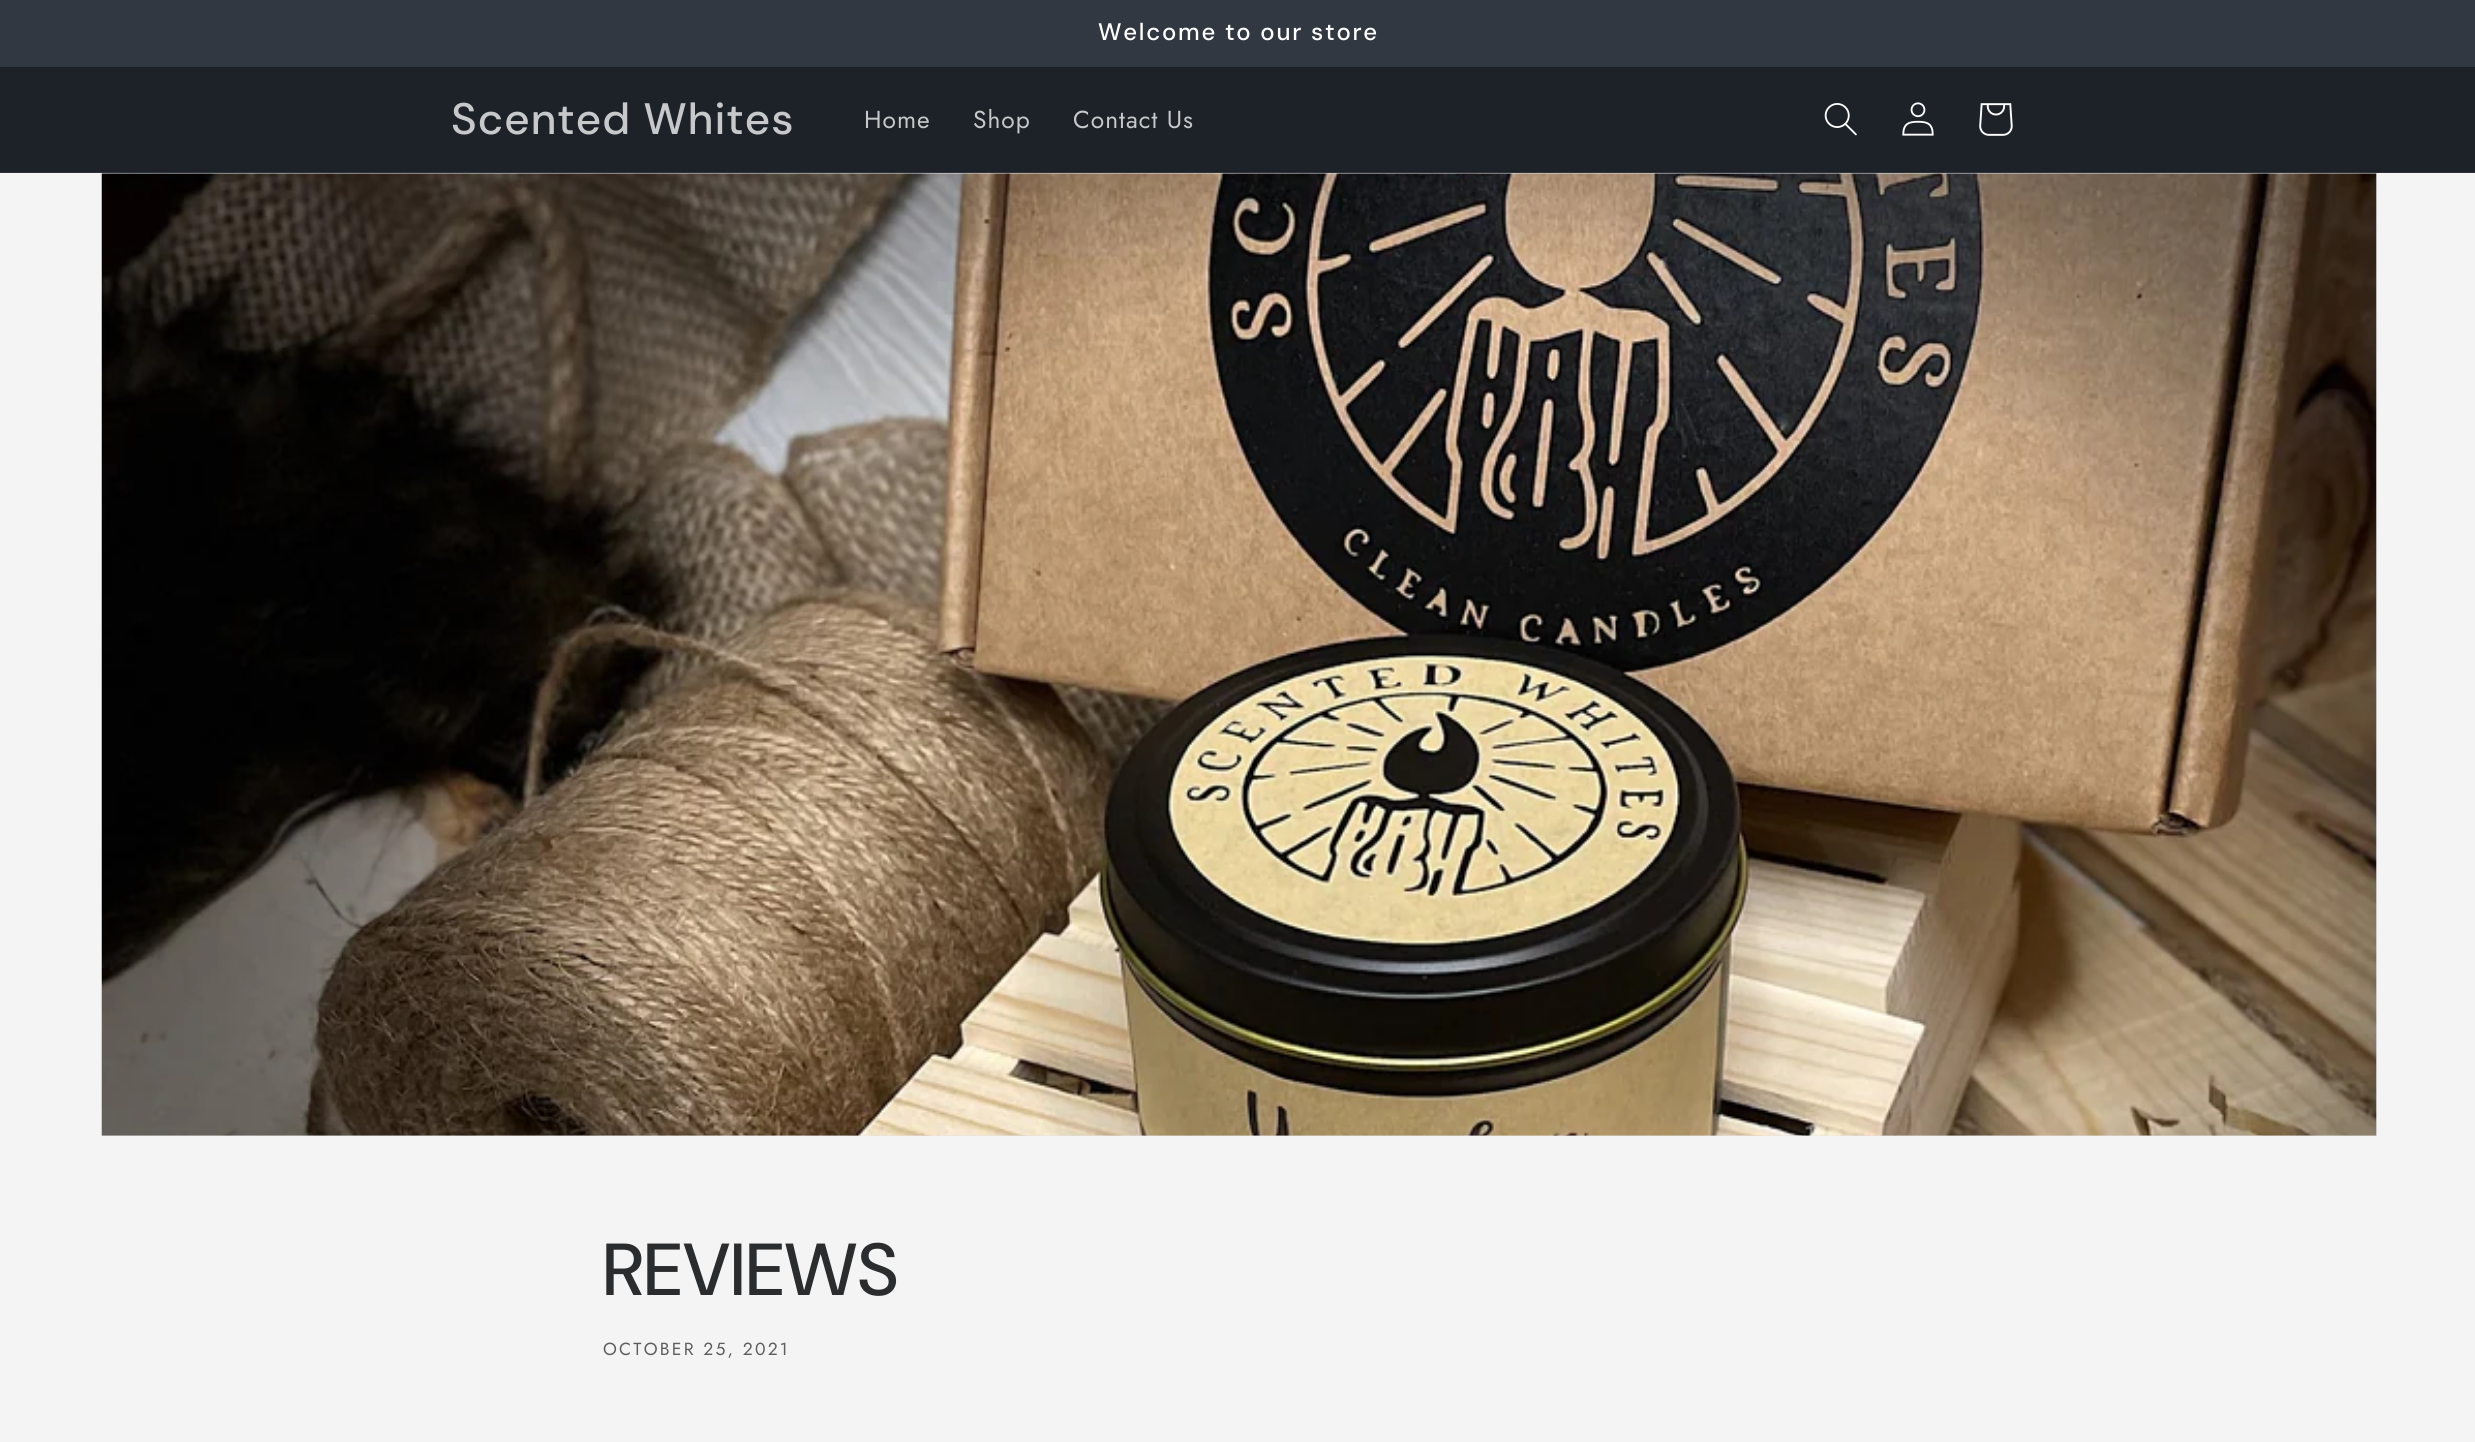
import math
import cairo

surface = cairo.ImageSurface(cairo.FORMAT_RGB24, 2475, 1442)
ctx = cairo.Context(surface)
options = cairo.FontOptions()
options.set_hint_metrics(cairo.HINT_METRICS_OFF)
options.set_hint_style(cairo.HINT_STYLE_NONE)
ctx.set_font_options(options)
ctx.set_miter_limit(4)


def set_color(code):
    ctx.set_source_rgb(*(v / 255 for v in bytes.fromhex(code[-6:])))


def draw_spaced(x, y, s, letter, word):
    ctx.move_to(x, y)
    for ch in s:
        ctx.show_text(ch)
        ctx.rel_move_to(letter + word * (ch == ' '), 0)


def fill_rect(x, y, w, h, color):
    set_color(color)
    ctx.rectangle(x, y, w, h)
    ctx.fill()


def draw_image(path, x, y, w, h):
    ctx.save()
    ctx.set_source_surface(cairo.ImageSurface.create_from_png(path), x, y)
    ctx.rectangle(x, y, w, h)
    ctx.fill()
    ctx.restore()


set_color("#f4f4f4")
ctx.paint()
fill_rect(0, 0, 2475, 67, "#323841")
ctx.select_font_face("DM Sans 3 Medium")
ctx.set_font_size(23.9)
set_color("#ffffff")
draw_spaced(1098, 40, "Welcome to our store", 1.75, 0)
fill_rect(0, 67, 2475, 106, "#1c2228")
fill_rect(102, 173, 2275, 963, "#e4e4e4")
draw_image("assets/img4.png", 101, 173, 2276, 963)
ctx.set_source_rgba(1, 1, 1, 0.08)
ctx.rectangle(0, 172, 2475, 2)
ctx.fill()
ctx.select_font_face("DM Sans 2 Medium")
ctx.set_font_size(44)
set_color("#c6c8c9")
draw_spaced(451, 134, "Scented Whites", 1.1, 0)
ctx.select_font_face("Jost")
ctx.set_font_size(24.5)
draw_spaced(864, 128, "Home", 1, 0)
draw_spaced(973, 128, "Shop", 1, 0)
draw_spaced(1073, 128, "Contact Us", 1, 0)
draw_image("assets/img1.png", 1824, 103, 33, 33)
draw_image("assets/img2.png", 1902, 102, 32, 34)
draw_image("assets/img3.png", 1979, 103, 34, 33)
ctx.select_font_face("DM Sans Medium")
ctx.set_font_size(73.5)
set_color("#2b2c2d")
draw_spaced(603, 1295, "REVIEWS", 1.1, 0)
ctx.select_font_face("Jost")
ctx.set_font_size(17.5)
set_color("#5d5e5f")
draw_spaced(603, 1355, "OCTOBER 25, 2021", 2.25, 0)
surface.write_to_png("output.png")
